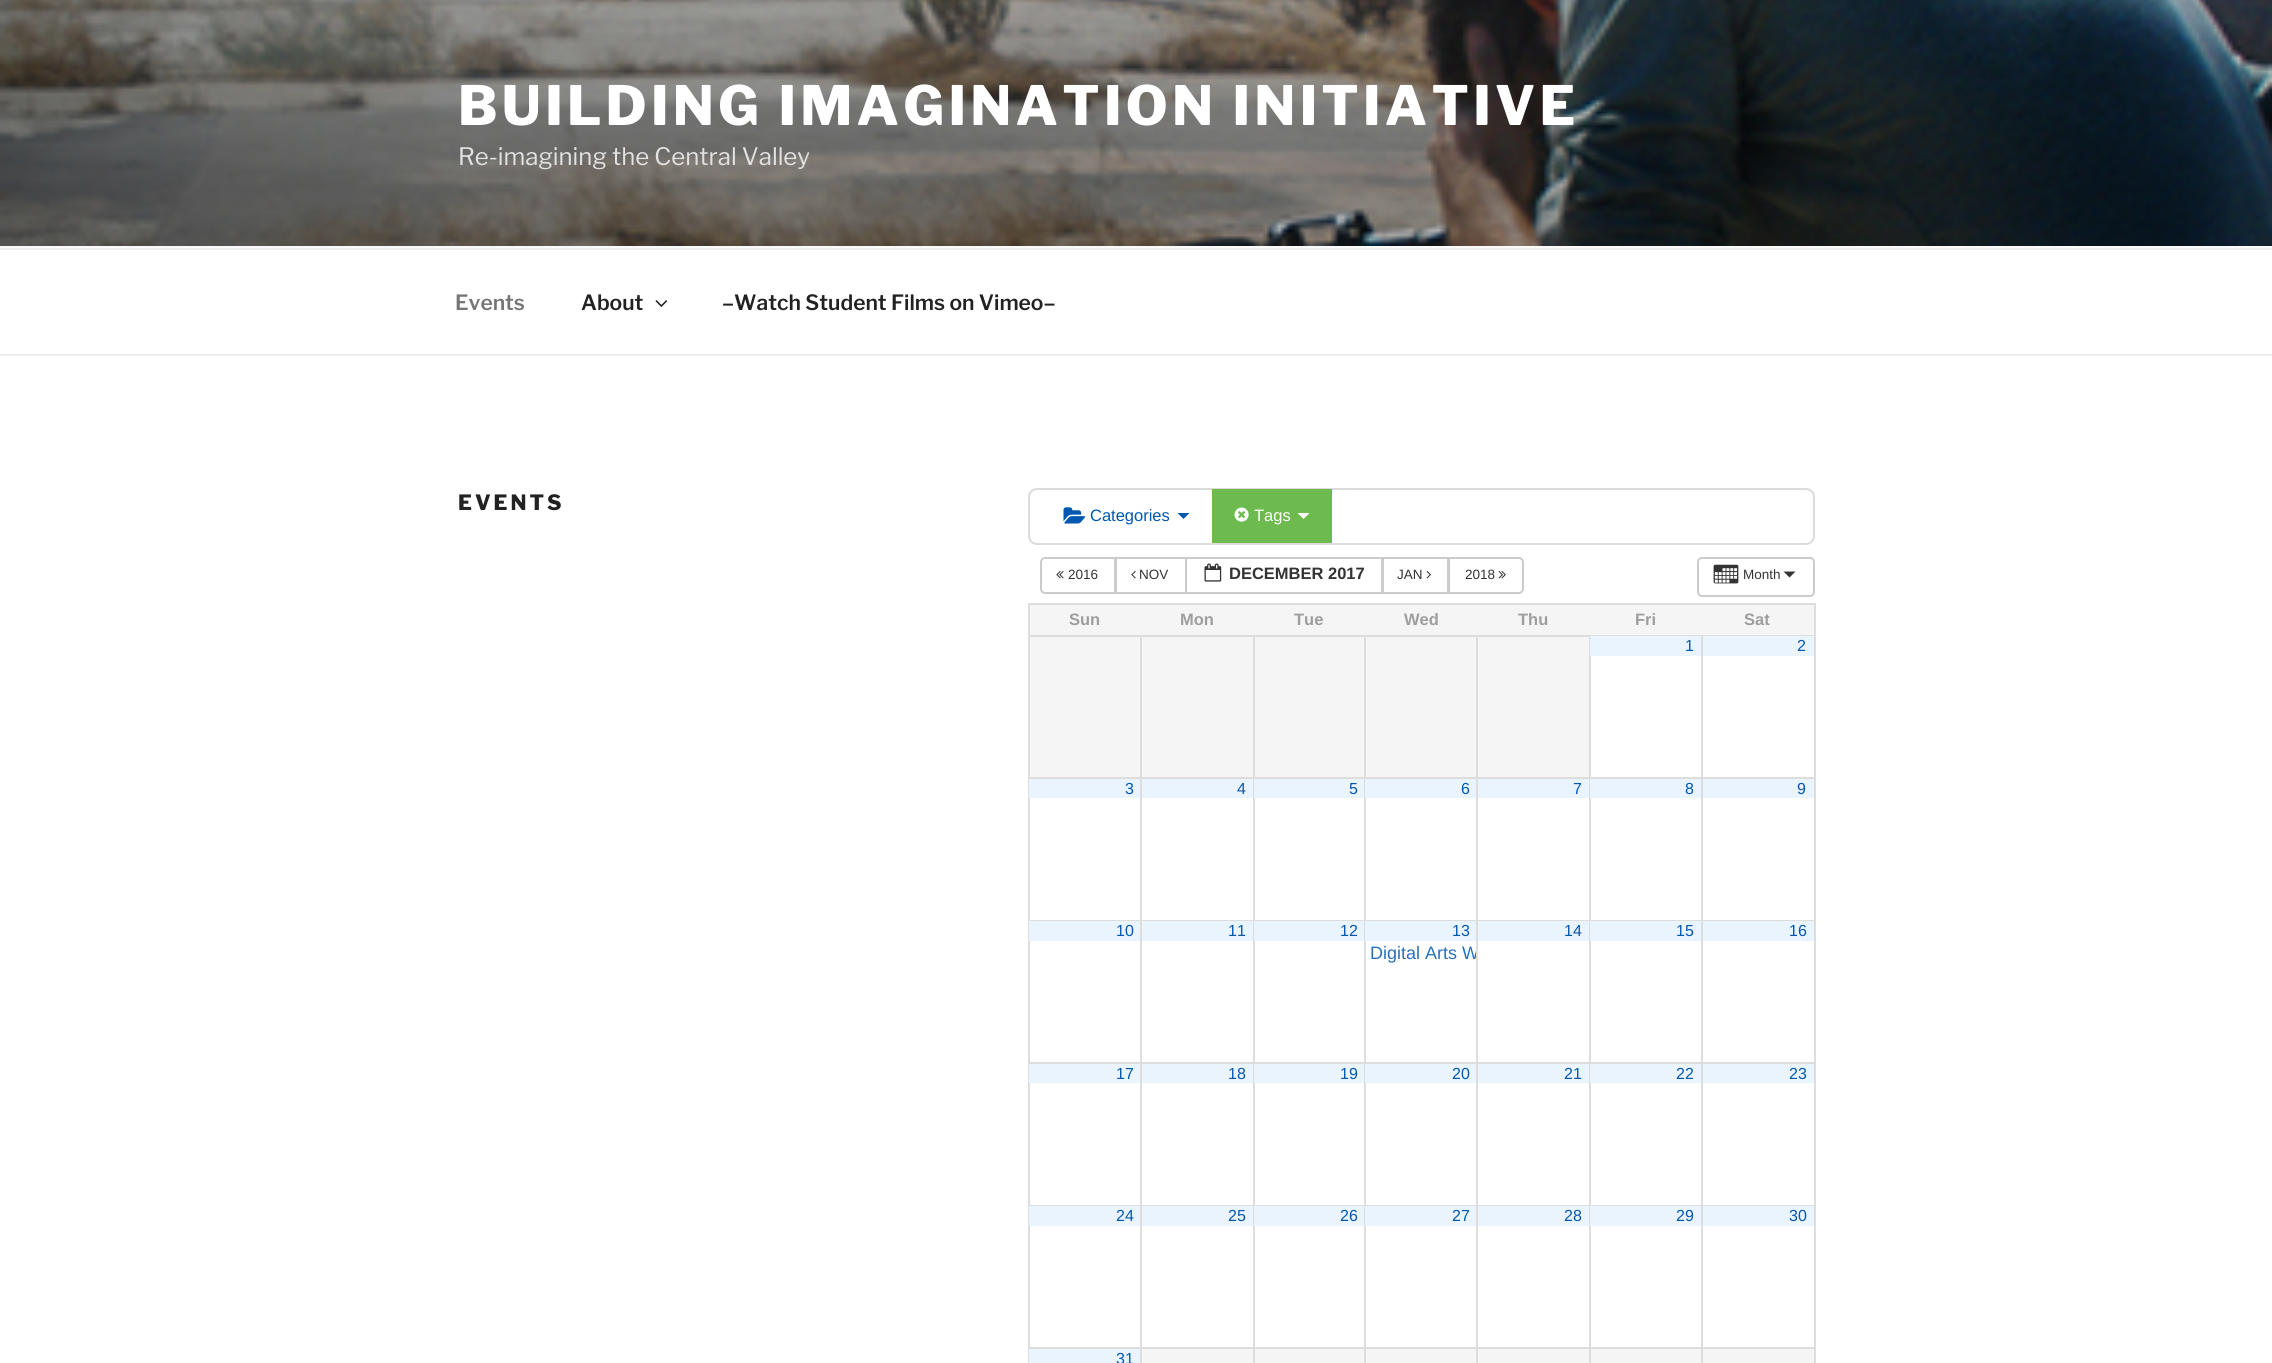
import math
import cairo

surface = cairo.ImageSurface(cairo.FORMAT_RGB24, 2272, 1363)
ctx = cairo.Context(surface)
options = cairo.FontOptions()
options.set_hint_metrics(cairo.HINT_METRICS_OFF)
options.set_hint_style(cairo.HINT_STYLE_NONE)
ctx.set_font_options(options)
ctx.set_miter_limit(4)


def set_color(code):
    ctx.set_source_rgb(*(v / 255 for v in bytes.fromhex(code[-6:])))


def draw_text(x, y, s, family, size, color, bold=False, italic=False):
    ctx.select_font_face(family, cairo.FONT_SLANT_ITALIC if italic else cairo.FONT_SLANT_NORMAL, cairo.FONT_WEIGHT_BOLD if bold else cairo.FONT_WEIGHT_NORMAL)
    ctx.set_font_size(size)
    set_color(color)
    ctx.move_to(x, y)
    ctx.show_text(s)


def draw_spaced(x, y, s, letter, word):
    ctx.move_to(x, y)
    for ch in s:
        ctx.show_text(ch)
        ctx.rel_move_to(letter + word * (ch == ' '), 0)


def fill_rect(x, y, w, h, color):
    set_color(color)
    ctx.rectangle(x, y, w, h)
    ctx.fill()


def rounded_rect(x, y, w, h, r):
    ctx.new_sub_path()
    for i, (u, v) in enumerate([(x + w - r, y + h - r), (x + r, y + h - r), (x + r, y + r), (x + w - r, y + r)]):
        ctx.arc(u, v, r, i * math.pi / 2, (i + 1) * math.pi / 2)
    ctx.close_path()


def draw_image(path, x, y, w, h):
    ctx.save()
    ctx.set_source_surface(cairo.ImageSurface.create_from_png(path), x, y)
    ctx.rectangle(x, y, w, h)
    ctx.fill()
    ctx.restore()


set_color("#ffffff")
ctx.paint()
fill_rect(0, 246, 2272, 2, "#fafafa")
draw_image("assets/img1.png", 0, 0, 2272, 246)
ctx.select_font_face("Libre Franklin ExtraBold")
ctx.set_font_size(54)
set_color("#ffffff")
draw_spaced(458, 125, "BUILDING IMAGINATION INITIATIVE", 4.3, 0)
draw_text(458, 165, "Re-imagining the Central Valley", "Libre Franklin", 24, "#e3e2e2")
fill_rect(0, 248, 2272, 2, "#eeeeee")
fill_rect(0, 354, 2272, 2, "#eeeeee")
draw_text(455, 310, "Events", "Libre Franklin SemiBold", 21, "#767676")
draw_text(581, 310, "About", "Libre Franklin SemiBold", 21, "#222222")
draw_image("assets/img2.png", 655, 300, 13, 7)
draw_text(722, 310, "–Watch Student Films on Vimeo–", "Libre Franklin SemiBold", 21, "#222222")
ctx.select_font_face("Libre Franklin ExtraBold")
draw_spaced(458, 510, "EVENTS", 3, 0)
rounded_rect(1029, 489, 785, 55, 8)
set_color("#dbdbdb")
ctx.stroke()
draw_image("assets/img3.png", 1063, 507, 23, 17)
draw_text(1090, 521, "Categories", "Liberation Sans", 16.5, "#0158b0")
ctx.new_path()
ctx.move_to(1177.5, 513)
ctx.line_to(1189.5, 513)
ctx.line_to(1183.5, 519)
ctx.close_path()
ctx.fill()
fill_rect(1212, 489, 120, 54, "#6dbb4f")
draw_image("assets/img4.png", 1234, 507, 15, 15)
draw_text(1254, 521, "Tags", "Liberation Sans", 16.5, "#ffffff")
ctx.new_path()
ctx.move_to(1297.5, 513)
ctx.line_to(1309.5, 513)
ctx.line_to(1303.5, 519)
ctx.close_path()
ctx.fill()
ctx.new_path()
ctx.move_to(1045, 558)
ctx.line_to(1115, 558)
ctx.line_to(1115, 593)
ctx.line_to(1045, 593)
ctx.curve_to(1043, 593, 1041, 591, 1041, 589)
ctx.line_to(1041, 562)
ctx.curve_to(1041, 560, 1043, 558, 1045, 558)
ctx.close_path()
set_color("#cccccc")
ctx.stroke()
draw_image("assets/img5.png", 1056, 571, 8, 8)
draw_text(1068, 579, "2016", "Liberation Sans", 13.5, "#333333")
ctx.rectangle(1116, 558, 70, 35)
set_color("#cccccc")
ctx.stroke()
draw_image("assets/img6.png", 1131, 571, 5, 8)
draw_text(1139, 579, "NOV", "Liberation Sans", 13.5, "#333333")
ctx.rectangle(1186, 558, 196, 35)
set_color("#cccccc")
ctx.stroke()
draw_image("assets/img7.png", 1204, 563, 18, 19)
draw_text(1229, 579, "DECEMBER 2017", "Liberation Sans", 16.5, "#333333", bold=True)
ctx.rectangle(1383, 558, 65, 35)
set_color("#cccccc")
ctx.stroke()
draw_text(1397, 579, "JAN", "Liberation Sans", 13.5, "#333333")
draw_image("assets/img8.png", 1426, 571, 5, 8)
set_color("#ffffff")
ctx.new_path()
ctx.move_to(1449, 558)
ctx.line_to(1519, 558)
ctx.curve_to(1521, 558, 1523, 560, 1523, 562)
ctx.line_to(1523, 589)
ctx.curve_to(1523, 591, 1521, 593, 1519, 593)
ctx.line_to(1449, 593)
ctx.close_path()
ctx.fill_preserve()
set_color("#cccccc")
ctx.stroke()
draw_text(1465, 579, "2018", "Liberation Sans", 13.5, "#333333")
draw_image("assets/img9.png", 1498, 571, 8, 8)
rounded_rect(1698, 558, 116, 38, 4)
set_color("#cccccc")
ctx.stroke()
draw_image("assets/img10.png", 1713, 564, 26, 20)
draw_text(1743, 579, "Month", "Liberation Sans", 13.5, "#333333")
ctx.new_path()
ctx.move_to(1783.5, 571.5)
ctx.line_to(1795.5, 571.5)
ctx.line_to(1789.5, 577.5)
ctx.close_path()
ctx.fill()
fill_rect(1028, 603, 787, 2, "#dddddd")
fill_rect(1814, 603, 2, 760, "#dddddd")
fill_rect(1028, 603, 2, 760, "#dddddd")
fill_rect(1030, 605, 784, 30, "#f5f5f5")
draw_text(1069, 625, "Sun", "Liberation Sans", 16.5, "#9e9e9e", bold=True)
draw_text(1180, 625, "Mon", "Liberation Sans", 16.5, "#9e9e9e", bold=True)
draw_text(1294, 625, "Tue", "Liberation Sans", 16.5, "#9e9e9e", bold=True)
draw_text(1404, 625, "Wed", "Liberation Sans", 16.5, "#9e9e9e", bold=True)
draw_text(1518, 625, "Thu", "Liberation Sans", 16.5, "#9e9e9e", bold=True)
draw_text(1635, 625, "Fri", "Liberation Sans", 16.5, "#9e9e9e", bold=True)
draw_text(1744, 625, "Sat", "Liberation Sans", 16.5, "#9e9e9e", bold=True)
fill_rect(1030, 637, 110, 140, "#f5f5f5")
fill_rect(1701, 635, 114, 2, "#dddddd")
fill_rect(1701, 777, 114, 2, "#dddddd")
fill_rect(1701, 920, 114, 2, "#dddddd")
fill_rect(1701, 1062, 114, 2, "#dddddd")
fill_rect(1701, 1205, 114, 2, "#dddddd")
fill_rect(1701, 1347, 114, 2, "#dddddd")
fill_rect(1701, 1347, 2, 16, "#dddddd")
fill_rect(1589, 1347, 114, 2, "#dddddd")
fill_rect(1701, 1205, 2, 144, "#dddddd")
fill_rect(1589, 1205, 114, 2, "#dddddd")
fill_rect(1701, 1062, 2, 144, "#dddddd")
fill_rect(1589, 1062, 114, 2, "#dddddd")
fill_rect(1701, 920, 2, 144, "#dddddd")
fill_rect(1589, 920, 114, 2, "#dddddd")
fill_rect(1701, 777, 2, 144, "#dddddd")
fill_rect(1589, 777, 114, 2, "#dddddd")
fill_rect(1701, 635, 2, 144, "#dddddd")
fill_rect(1589, 635, 114, 2, "#dddddd")
fill_rect(1589, 1347, 2, 16, "#dddddd")
fill_rect(1476, 1347, 114, 2, "#dddddd")
fill_rect(1589, 1205, 2, 144, "#dddddd")
fill_rect(1476, 1205, 114, 2, "#dddddd")
fill_rect(1589, 1062, 2, 144, "#dddddd")
fill_rect(1476, 1062, 114, 2, "#dddddd")
fill_rect(1589, 920, 2, 144, "#dddddd")
fill_rect(1476, 920, 114, 2, "#dddddd")
fill_rect(1589, 777, 2, 144, "#dddddd")
fill_rect(1476, 777, 114, 2, "#dddddd")
fill_rect(1589, 635, 2, 144, "#dddddd")
fill_rect(1476, 635, 114, 2, "#dddddd")
fill_rect(1476, 1347, 2, 16, "#dddddd")
fill_rect(1364, 1347, 114, 2, "#dddddd")
fill_rect(1476, 1205, 2, 144, "#dddddd")
fill_rect(1364, 1205, 114, 2, "#dddddd")
fill_rect(1476, 1062, 2, 144, "#dddddd")
fill_rect(1364, 1062, 114, 2, "#dddddd")
fill_rect(1476, 920, 2, 144, "#dddddd")
fill_rect(1364, 920, 114, 2, "#dddddd")
fill_rect(1476, 777, 2, 144, "#dddddd")
fill_rect(1364, 777, 114, 2, "#dddddd")
fill_rect(1476, 635, 2, 144, "#dddddd")
fill_rect(1364, 635, 114, 2, "#dddddd")
fill_rect(1364, 1347, 2, 16, "#dddddd")
fill_rect(1253, 1347, 112, 2, "#dddddd")
fill_rect(1364, 1205, 2, 144, "#dddddd")
fill_rect(1253, 1205, 112, 2, "#dddddd")
fill_rect(1364, 1062, 2, 144, "#dddddd")
fill_rect(1253, 1062, 112, 2, "#dddddd")
fill_rect(1364, 920, 2, 144, "#dddddd")
fill_rect(1253, 920, 112, 2, "#dddddd")
fill_rect(1364, 777, 2, 144, "#dddddd")
fill_rect(1253, 777, 112, 2, "#dddddd")
fill_rect(1364, 635, 2, 144, "#dddddd")
fill_rect(1253, 635, 112, 2, "#dddddd")
fill_rect(1253, 1347, 2, 16, "#dddddd")
fill_rect(1140, 1347, 114, 2, "#dddddd")
fill_rect(1253, 1205, 2, 144, "#dddddd")
fill_rect(1140, 1205, 114, 2, "#dddddd")
fill_rect(1253, 1062, 2, 144, "#dddddd")
fill_rect(1140, 1062, 114, 2, "#dddddd")
fill_rect(1253, 920, 2, 144, "#dddddd")
fill_rect(1140, 920, 114, 2, "#dddddd")
fill_rect(1253, 777, 2, 144, "#dddddd")
fill_rect(1140, 777, 114, 2, "#dddddd")
fill_rect(1253, 635, 2, 144, "#dddddd")
fill_rect(1140, 635, 114, 2, "#dddddd")
fill_rect(1140, 1347, 2, 16, "#dddddd")
fill_rect(1028, 1347, 114, 2, "#dddddd")
fill_rect(1140, 1205, 2, 144, "#dddddd")
fill_rect(1028, 1205, 114, 2, "#dddddd")
fill_rect(1140, 1062, 2, 144, "#dddddd")
fill_rect(1028, 1062, 114, 2, "#dddddd")
fill_rect(1140, 920, 2, 144, "#dddddd")
fill_rect(1028, 920, 114, 2, "#dddddd")
fill_rect(1140, 777, 2, 144, "#dddddd")
fill_rect(1028, 777, 114, 2, "#dddddd")
fill_rect(1140, 635, 2, 144, "#dddddd")
fill_rect(1028, 635, 114, 2, "#dddddd")
fill_rect(1142, 637, 111, 140, "#f5f5f5")
fill_rect(1255, 637, 109, 140, "#f5f5f5")
fill_rect(1366, 637, 110, 140, "#f5f5f5")
fill_rect(1478, 637, 111, 140, "#f5f5f5")
fill_rect(1590, 636, 111, 20, "#eaf4ff")
draw_text(1685, 651, "1", "Liberation Sans", 16, "#0158b0")
fill_rect(1703, 636, 111, 20, "#eaf4ff")
draw_text(1797, 651, "2", "Liberation Sans", 16, "#0158b0")
fill_rect(1029, 779, 111, 19, "#eaf4ff")
draw_text(1125, 794, "3", "Liberation Sans", 16, "#0158b0")
fill_rect(1142, 779, 111, 19, "#eaf4ff")
draw_text(1237, 794, "4", "Liberation Sans", 16, "#0158b0")
fill_rect(1254, 779, 110, 19, "#eaf4ff")
draw_text(1349, 794, "5", "Liberation Sans", 16, "#0158b0")
fill_rect(1365, 779, 111, 19, "#eaf4ff")
draw_text(1461, 794, "6", "Liberation Sans", 16, "#0158b0")
fill_rect(1478, 779, 111, 19, "#eaf4ff")
draw_text(1573, 794, "7", "Liberation Sans", 16, "#0158b0")
fill_rect(1590, 779, 111, 19, "#eaf4ff")
draw_text(1685, 794, "8", "Liberation Sans", 16, "#0158b0")
fill_rect(1703, 779, 111, 19, "#eaf4ff")
draw_text(1797, 794, "9", "Liberation Sans", 16, "#0158b0")
fill_rect(1029, 921, 111, 20, "#eaf4ff")
draw_text(1116, 936, "10", "Liberation Sans", 16, "#0158b0")
fill_rect(1142, 921, 111, 20, "#eaf4ff")
draw_text(1228, 936, "11", "Liberation Sans", 16, "#0158b0")
fill_rect(1254, 921, 110, 20, "#eaf4ff")
draw_text(1340, 936, "12", "Liberation Sans", 16, "#0158b0")
fill_rect(1365, 921, 111, 20, "#eaf4ff")
draw_text(1452, 936, "13", "Liberation Sans", 16, "#0158b0")
ctx.save()
ctx.rectangle(1365, 942, 111, 21)
ctx.clip()
draw_text(1370, 959, "Digital Arts W", "Liberation Sans", 18, "#2771bc")
ctx.restore()
fill_rect(1478, 921, 111, 20, "#eaf4ff")
draw_text(1564, 936, "14", "Liberation Sans", 16, "#0158b0")
fill_rect(1590, 921, 111, 20, "#eaf4ff")
draw_text(1676, 936, "15", "Liberation Sans", 16, "#0158b0")
fill_rect(1703, 921, 111, 20, "#eaf4ff")
draw_text(1789, 936, "16", "Liberation Sans", 16, "#0158b0")
fill_rect(1029, 1064, 111, 19, "#eaf4ff")
draw_text(1116, 1079, "17", "Liberation Sans", 16, "#0158b0")
fill_rect(1142, 1064, 111, 19, "#eaf4ff")
draw_text(1228, 1079, "18", "Liberation Sans", 16, "#0158b0")
fill_rect(1254, 1064, 110, 19, "#eaf4ff")
draw_text(1340, 1079, "19", "Liberation Sans", 16, "#0158b0")
fill_rect(1365, 1064, 111, 19, "#eaf4ff")
draw_text(1452, 1079, "20", "Liberation Sans", 16, "#0158b0")
fill_rect(1478, 1064, 111, 19, "#eaf4ff")
draw_text(1564, 1079, "21", "Liberation Sans", 16, "#0158b0")
fill_rect(1590, 1064, 111, 19, "#eaf4ff")
draw_text(1676, 1079, "22", "Liberation Sans", 16, "#0158b0")
fill_rect(1703, 1064, 111, 19, "#eaf4ff")
draw_text(1789, 1079, "23", "Liberation Sans", 16, "#0158b0")
fill_rect(1029, 1206, 111, 20, "#eaf4ff")
draw_text(1116, 1221, "24", "Liberation Sans", 16, "#0158b0")
fill_rect(1142, 1206, 111, 20, "#eaf4ff")
draw_text(1228, 1221, "25", "Liberation Sans", 16, "#0158b0")
fill_rect(1254, 1206, 110, 20, "#eaf4ff")
draw_text(1340, 1221, "26", "Liberation Sans", 16, "#0158b0")
fill_rect(1365, 1206, 111, 20, "#eaf4ff")
draw_text(1452, 1221, "27", "Liberation Sans", 16, "#0158b0")
fill_rect(1478, 1206, 111, 20, "#eaf4ff")
draw_text(1564, 1221, "28", "Liberation Sans", 16, "#0158b0")
fill_rect(1590, 1206, 111, 20, "#eaf4ff")
draw_text(1676, 1221, "29", "Liberation Sans", 16, "#0158b0")
fill_rect(1703, 1206, 111, 20, "#eaf4ff")
draw_text(1789, 1221, "30", "Liberation Sans", 16, "#0158b0")
fill_rect(1029, 1349, 111, 14, "#eaf4ff")
draw_text(1116, 1364, "31", "Liberation Sans", 16, "#0158b0")
fill_rect(1142, 1349, 111, 14, "#f5f5f5")
fill_rect(1255, 1349, 109, 14, "#f5f5f5")
fill_rect(1366, 1349, 110, 14, "#f5f5f5")
fill_rect(1478, 1349, 111, 14, "#f5f5f5")
fill_rect(1591, 1349, 110, 14, "#f5f5f5")
fill_rect(1703, 1349, 111, 14, "#f5f5f5")
surface.write_to_png("output.png")
